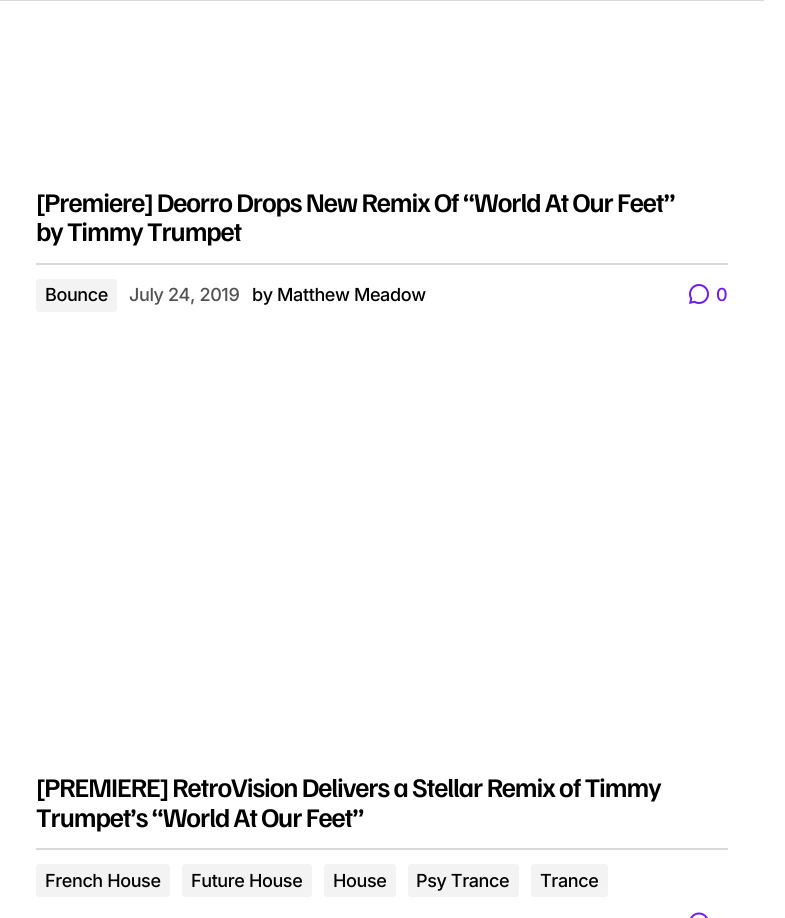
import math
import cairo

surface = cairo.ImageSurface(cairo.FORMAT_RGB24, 785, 918)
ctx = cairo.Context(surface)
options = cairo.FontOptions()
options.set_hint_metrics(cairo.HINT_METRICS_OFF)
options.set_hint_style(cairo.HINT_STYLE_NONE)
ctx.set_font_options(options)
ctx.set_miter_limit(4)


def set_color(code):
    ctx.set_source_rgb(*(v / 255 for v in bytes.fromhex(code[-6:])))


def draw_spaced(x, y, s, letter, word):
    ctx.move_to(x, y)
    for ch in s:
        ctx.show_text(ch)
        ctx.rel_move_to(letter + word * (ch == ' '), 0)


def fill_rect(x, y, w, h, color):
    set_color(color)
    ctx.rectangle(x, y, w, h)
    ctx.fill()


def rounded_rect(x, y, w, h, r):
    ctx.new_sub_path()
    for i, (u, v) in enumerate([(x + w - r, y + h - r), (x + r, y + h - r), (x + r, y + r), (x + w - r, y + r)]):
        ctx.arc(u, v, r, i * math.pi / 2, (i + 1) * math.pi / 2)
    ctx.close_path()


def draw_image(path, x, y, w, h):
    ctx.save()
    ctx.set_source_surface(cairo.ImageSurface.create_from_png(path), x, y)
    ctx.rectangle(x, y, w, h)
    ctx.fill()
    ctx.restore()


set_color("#ffffff")
ctx.paint()
fill_rect(0, 0, 764, 1, "#d9d9d9")
ctx.select_font_face("Familjen Grotesk SemiBold")
ctx.set_font_size(27)
set_color("#000000")
draw_spaced(36, 212, "[Premiere] Deorro Drops New Remix Of “World At Our Feet”", -1.08, 0)
draw_spaced(36, 241, "by Timmy Trumpet", -1.08, 0)
fill_rect(36, 263, 692, 2, "#d9d9d9")
set_color("#f3f3f3")
rounded_rect(36, 279, 81, 33, 3)
ctx.fill()
ctx.select_font_face("Inter Medium")
ctx.set_font_size(18)
set_color("#000000")
draw_spaced(45, 301, "Bounce", -0.4, 0)
set_color("#525252")
draw_spaced(129, 301, "July 24, 2019", -0.4, 0)
set_color("#000000")
draw_spaced(252, 301, "by Matthew Meadow", -0.4, 0)
draw_image("assets/img1.png", 689, 284, 20, 20)
set_color("#6d1def")
draw_spaced(716, 301, "0", -0.4, 0)
ctx.select_font_face("Familjen Grotesk SemiBold")
ctx.set_font_size(27)
set_color("#000000")
draw_spaced(36, 797, "[PREMIERE] RetroVision Delivers a Stellar Remix of Timmy", -1.08, 0)
draw_spaced(36, 827, "Trumpet’s “World At Our Feet”", -1.08, 0)
fill_rect(36, 848, 692, 2, "#d9d9d9")
set_color("#f3f3f3")
rounded_rect(36, 864, 134, 33, 3)
ctx.fill()
ctx.select_font_face("Inter Medium")
ctx.set_font_size(18)
set_color("#000000")
draw_spaced(45, 887, "French House", -0.4, 0)
set_color("#f3f3f3")
rounded_rect(182, 864, 130, 33, 3)
ctx.fill()
set_color("#000000")
draw_spaced(191, 887, "Future House", -0.4, 0)
set_color("#f3f3f3")
rounded_rect(324, 864, 72, 33, 3)
ctx.fill()
set_color("#000000")
draw_spaced(333, 887, "House", -0.4, 0)
set_color("#f3f3f3")
rounded_rect(408, 864, 111, 33, 3)
ctx.fill()
set_color("#000000")
draw_spaced(416, 887, "Psy Trance", -0.4, 0)
set_color("#f3f3f3")
rounded_rect(531, 864, 77, 33, 3)
ctx.fill()
set_color("#000000")
draw_spaced(540, 887, "Trance", -0.4, 0)
draw_image("assets/img2.png", 690, 912, 18, 6)
surface.write_to_png("output.png")
